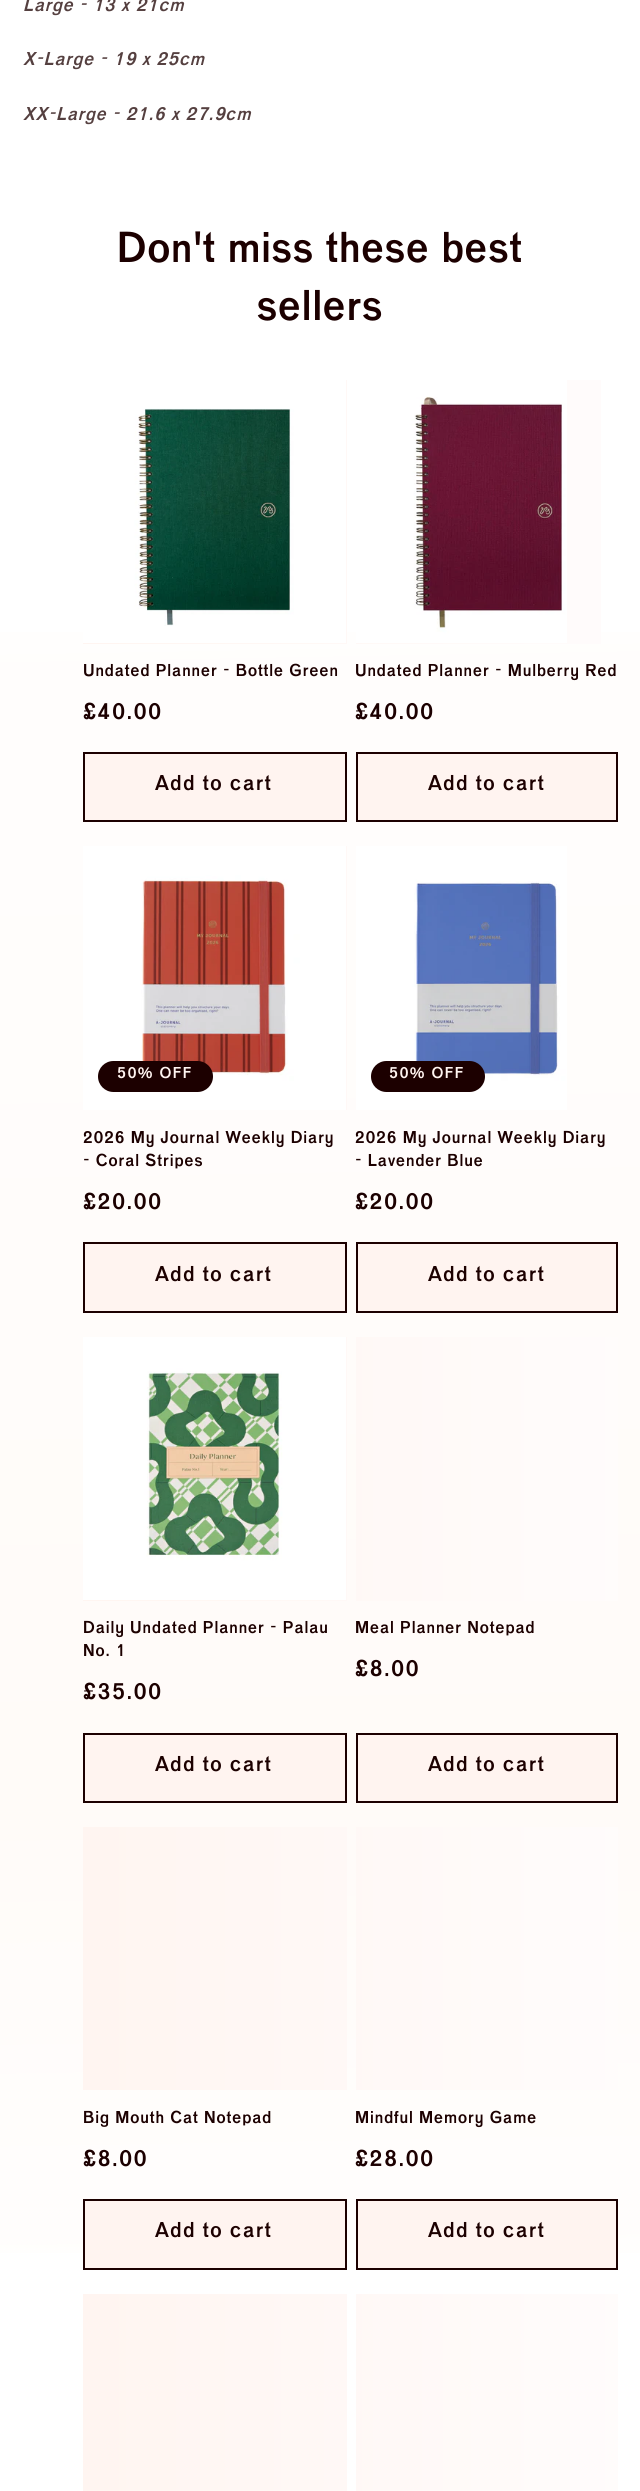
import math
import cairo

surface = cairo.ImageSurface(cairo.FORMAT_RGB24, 640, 2491)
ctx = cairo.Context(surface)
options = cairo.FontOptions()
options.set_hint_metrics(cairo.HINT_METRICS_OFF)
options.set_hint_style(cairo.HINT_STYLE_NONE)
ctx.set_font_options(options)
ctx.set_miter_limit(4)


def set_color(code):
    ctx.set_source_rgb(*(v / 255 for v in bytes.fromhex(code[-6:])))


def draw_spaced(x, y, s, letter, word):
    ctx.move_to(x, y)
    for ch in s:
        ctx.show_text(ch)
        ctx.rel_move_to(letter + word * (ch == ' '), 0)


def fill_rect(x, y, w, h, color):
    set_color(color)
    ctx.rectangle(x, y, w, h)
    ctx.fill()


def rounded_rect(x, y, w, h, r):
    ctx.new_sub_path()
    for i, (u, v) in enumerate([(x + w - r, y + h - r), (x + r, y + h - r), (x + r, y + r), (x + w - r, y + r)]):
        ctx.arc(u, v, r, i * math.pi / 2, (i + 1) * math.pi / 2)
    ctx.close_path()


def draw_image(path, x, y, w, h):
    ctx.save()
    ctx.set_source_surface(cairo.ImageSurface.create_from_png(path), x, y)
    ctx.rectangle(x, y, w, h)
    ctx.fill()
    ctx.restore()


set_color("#ffffff")
ctx.paint()
gradient = cairo.LinearGradient(298, -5.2, 342, 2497)
gradient.add_color_stop_rgba(0, 1, 1, 1, 1)
gradient.add_color_stop_rgba(0.72, 1, 0.984, 0.973, 1)
gradient.add_color_stop_rgba(1, 1, 1, 1, 1)
ctx.set_source(gradient)
ctx.rectangle(0, 632, 640, 1621)
ctx.fill()
ctx.select_font_face("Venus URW", cairo.FONT_SLANT_ITALIC, cairo.FONT_WEIGHT_BOLD)
ctx.set_font_size(19.5)
set_color("#554040")
draw_spaced(23, 11, "Large - 13 x 21cm", 0.9, 0)
draw_spaced(23, 65, "X-Large - 19 x 25cm", 0.9, 0)
draw_spaced(23, 120, "XX-Large - 21.6 x 27.9cm", 0.9, 0)
ctx.select_font_face("Venus URW", cairo.FONT_SLANT_NORMAL, cairo.FONT_WEIGHT_BOLD)
ctx.set_font_size(45)
set_color("#1c0000")
draw_spaced(117, 262, "Don't miss these best", 0.9, 0)
draw_spaced(257, 320, "sellers", 0.9, 0)
gradient = cairo.LinearGradient(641, 1246, 0, 1246)
gradient.add_color_stop_rgba(0, 1, 0.988, 0.988, 1)
gradient.add_color_stop_rgba(1, 1, 0.957, 0.937, 1)
ctx.set_source(gradient)
ctx.rectangle(83, 380, 264, 264)
ctx.fill()
draw_image("assets/img1.png", 83, 380, 263, 263)
ctx.set_font_size(18)
set_color("#1c0000")
draw_spaced(83, 676, "Undated Planner - Bottle Green", 0.9, 0)
ctx.set_font_size(24)
draw_spaced(83, 719, "£40.00", 1.5, 0)
fill_rect(85, 754, 260, 66, "#fff4f0")
ctx.rectangle(84, 753, 262, 68)
set_color("#1c0000")
ctx.stroke()
ctx.set_font_size(22.5)
draw_spaced(155, 790, "Add to cart", 1.5, 0)
gradient = cairo.LinearGradient(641, 1246, 0, 1246)
gradient.add_color_stop_rgba(0, 1, 0.988, 0.988, 1)
gradient.add_color_stop_rgba(1, 1, 0.957, 0.937, 1)
ctx.set_source(gradient)
ctx.rectangle(356, 380, 245, 264)
ctx.fill()
draw_image("assets/img2.png", 356, 380, 211, 263)
ctx.set_font_size(18)
set_color("#1c0000")
draw_spaced(355, 676, "Undated Planner - Mulberry Red", 0.9, 0)
ctx.set_font_size(24)
draw_spaced(355, 719, "£40.00", 1.5, 0)
fill_rect(358, 754, 258, 66, "#fff4f0")
ctx.rectangle(357, 753, 260, 68)
set_color("#1c0000")
ctx.stroke()
ctx.set_font_size(22.5)
draw_spaced(428, 790, "Add to cart", 1.5, 0)
gradient = cairo.LinearGradient(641, 1246, 0, 1246)
gradient.add_color_stop_rgba(0, 1, 0.988, 0.988, 1)
gradient.add_color_stop_rgba(1, 1, 0.957, 0.937, 1)
ctx.set_source(gradient)
ctx.rectangle(346, 846, 1, 264)
ctx.fill()
draw_image("assets/img3.png", 83, 846, 263, 264)
set_color("#1c0000")
rounded_rect(98, 1061, 115, 31, 15.5)
ctx.fill()
ctx.set_font_size(16.5)
set_color("#fff4f0")
draw_spaced(117, 1078, "50% OFF", 1.5, 0)
ctx.set_font_size(18)
set_color("#1c0000")
draw_spaced(83, 1143, "2026 My Journal Weekly Diary", 0.9, 0)
draw_spaced(83, 1166, "- Coral Stripes", 0.9, 0)
ctx.set_font_size(24)
draw_spaced(83, 1209, "£20.00", 1.5, 0)
fill_rect(85, 1244, 260, 67, "#fff4f0")
ctx.rectangle(84, 1243, 262, 69)
set_color("#1c0000")
ctx.stroke()
ctx.set_font_size(22.5)
draw_spaced(155, 1281, "Add to cart", 1.5, 0)
draw_image("assets/img4.png", 356, 846, 211, 264)
rounded_rect(371, 1061, 114, 31, 15.5)
ctx.fill()
ctx.set_font_size(16.5)
set_color("#fff4f0")
draw_spaced(389, 1078, "50% OFF", 1.5, 0)
ctx.set_font_size(18)
set_color("#1c0000")
draw_spaced(355, 1143, "2026 My Journal Weekly Diary", 0.9, 0)
draw_spaced(355, 1166, "- Lavender Blue", 0.9, 0)
ctx.set_font_size(24)
draw_spaced(355, 1209, "£20.00", 1.5, 0)
fill_rect(358, 1244, 258, 67, "#fff4f0")
ctx.rectangle(357, 1243, 260, 69)
set_color("#1c0000")
ctx.stroke()
ctx.set_font_size(22.5)
draw_spaced(428, 1281, "Add to cart", 1.5, 0)
gradient = cairo.LinearGradient(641, 1246, 0, 1246)
gradient.add_color_stop_rgba(0, 1, 0.988, 0.988, 1)
gradient.add_color_stop_rgba(1, 1, 0.957, 0.937, 1)
ctx.set_source(gradient)
ctx.rectangle(83, 1337, 264, 264)
ctx.fill()
draw_image("assets/img5.png", 83, 1337, 263, 263)
ctx.set_font_size(18)
set_color("#1c0000")
draw_spaced(83, 1633, "Daily Undated Planner - Palau", 0.9, 0)
draw_spaced(83, 1656, "No. 1", 0.9, 0)
ctx.set_font_size(24)
draw_spaced(83, 1699, "£35.00", 1.5, 0)
fill_rect(85, 1735, 260, 66, "#fff4f0")
ctx.rectangle(84, 1734, 262, 68)
set_color("#1c0000")
ctx.stroke()
ctx.set_font_size(22.5)
draw_spaced(155, 1771, "Add to cart", 1.5, 0)
gradient = cairo.LinearGradient(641, 1246, 0, 1246)
gradient.add_color_stop_rgba(0, 1, 0.988, 0.988, 1)
gradient.add_color_stop_rgba(1, 1, 0.957, 0.937, 1)
ctx.set_source(gradient)
ctx.rectangle(356, 1337, 262, 264)
ctx.fill()
ctx.set_font_size(18)
set_color("#1c0000")
draw_spaced(355, 1633, "Meal Planner Notepad", 0.9, 0)
ctx.set_font_size(24)
draw_spaced(355, 1676, "£8.00", 1.5, 0)
fill_rect(358, 1735, 258, 66, "#fff4f0")
ctx.rectangle(357, 1734, 260, 68)
set_color("#1c0000")
ctx.stroke()
ctx.set_font_size(22.5)
draw_spaced(428, 1771, "Add to cart", 1.5, 0)
gradient = cairo.LinearGradient(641, 1246, 0, 1246)
gradient.add_color_stop_rgba(0, 1, 0.988, 0.988, 1)
gradient.add_color_stop_rgba(1, 1, 0.957, 0.937, 1)
ctx.set_source(gradient)
ctx.rectangle(83, 1827, 264, 263)
ctx.fill()
ctx.set_font_size(18)
set_color("#1c0000")
draw_spaced(83, 2123, "Big Mouth Cat Notepad", 0.9, 0)
ctx.set_font_size(24)
draw_spaced(83, 2166, "£8.00", 1.5, 0)
fill_rect(85, 2201, 260, 67, "#fff4f0")
ctx.rectangle(84, 2200, 262, 69)
set_color("#1c0000")
ctx.stroke()
ctx.set_font_size(22.5)
draw_spaced(155, 2237, "Add to cart", 1.5, 0)
gradient = cairo.LinearGradient(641, 1246, 0, 1246)
gradient.add_color_stop_rgba(0, 1, 0.988, 0.988, 1)
gradient.add_color_stop_rgba(1, 1, 0.957, 0.937, 1)
ctx.set_source(gradient)
ctx.rectangle(356, 1827, 262, 263)
ctx.fill()
ctx.set_font_size(18)
set_color("#1c0000")
draw_spaced(355, 2123, "Mindful Memory Game", 0.9, 0)
ctx.set_font_size(24)
draw_spaced(355, 2166, "£28.00", 1.5, 0)
fill_rect(358, 2201, 258, 67, "#fff4f0")
ctx.rectangle(357, 2200, 260, 69)
set_color("#1c0000")
ctx.stroke()
ctx.set_font_size(22.5)
draw_spaced(428, 2237, "Add to cart", 1.5, 0)
gradient = cairo.LinearGradient(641, 1246, 0, 1246)
gradient.add_color_stop_rgba(0, 1, 0.988, 0.988, 1)
gradient.add_color_stop_rgba(1, 1, 0.957, 0.937, 1)
ctx.set_source(gradient)
ctx.rectangle(83, 2294, 264, 197)
ctx.fill()
ctx.rectangle(356, 2294, 262, 197)
ctx.fill()
surface.write_to_png("output.png")
